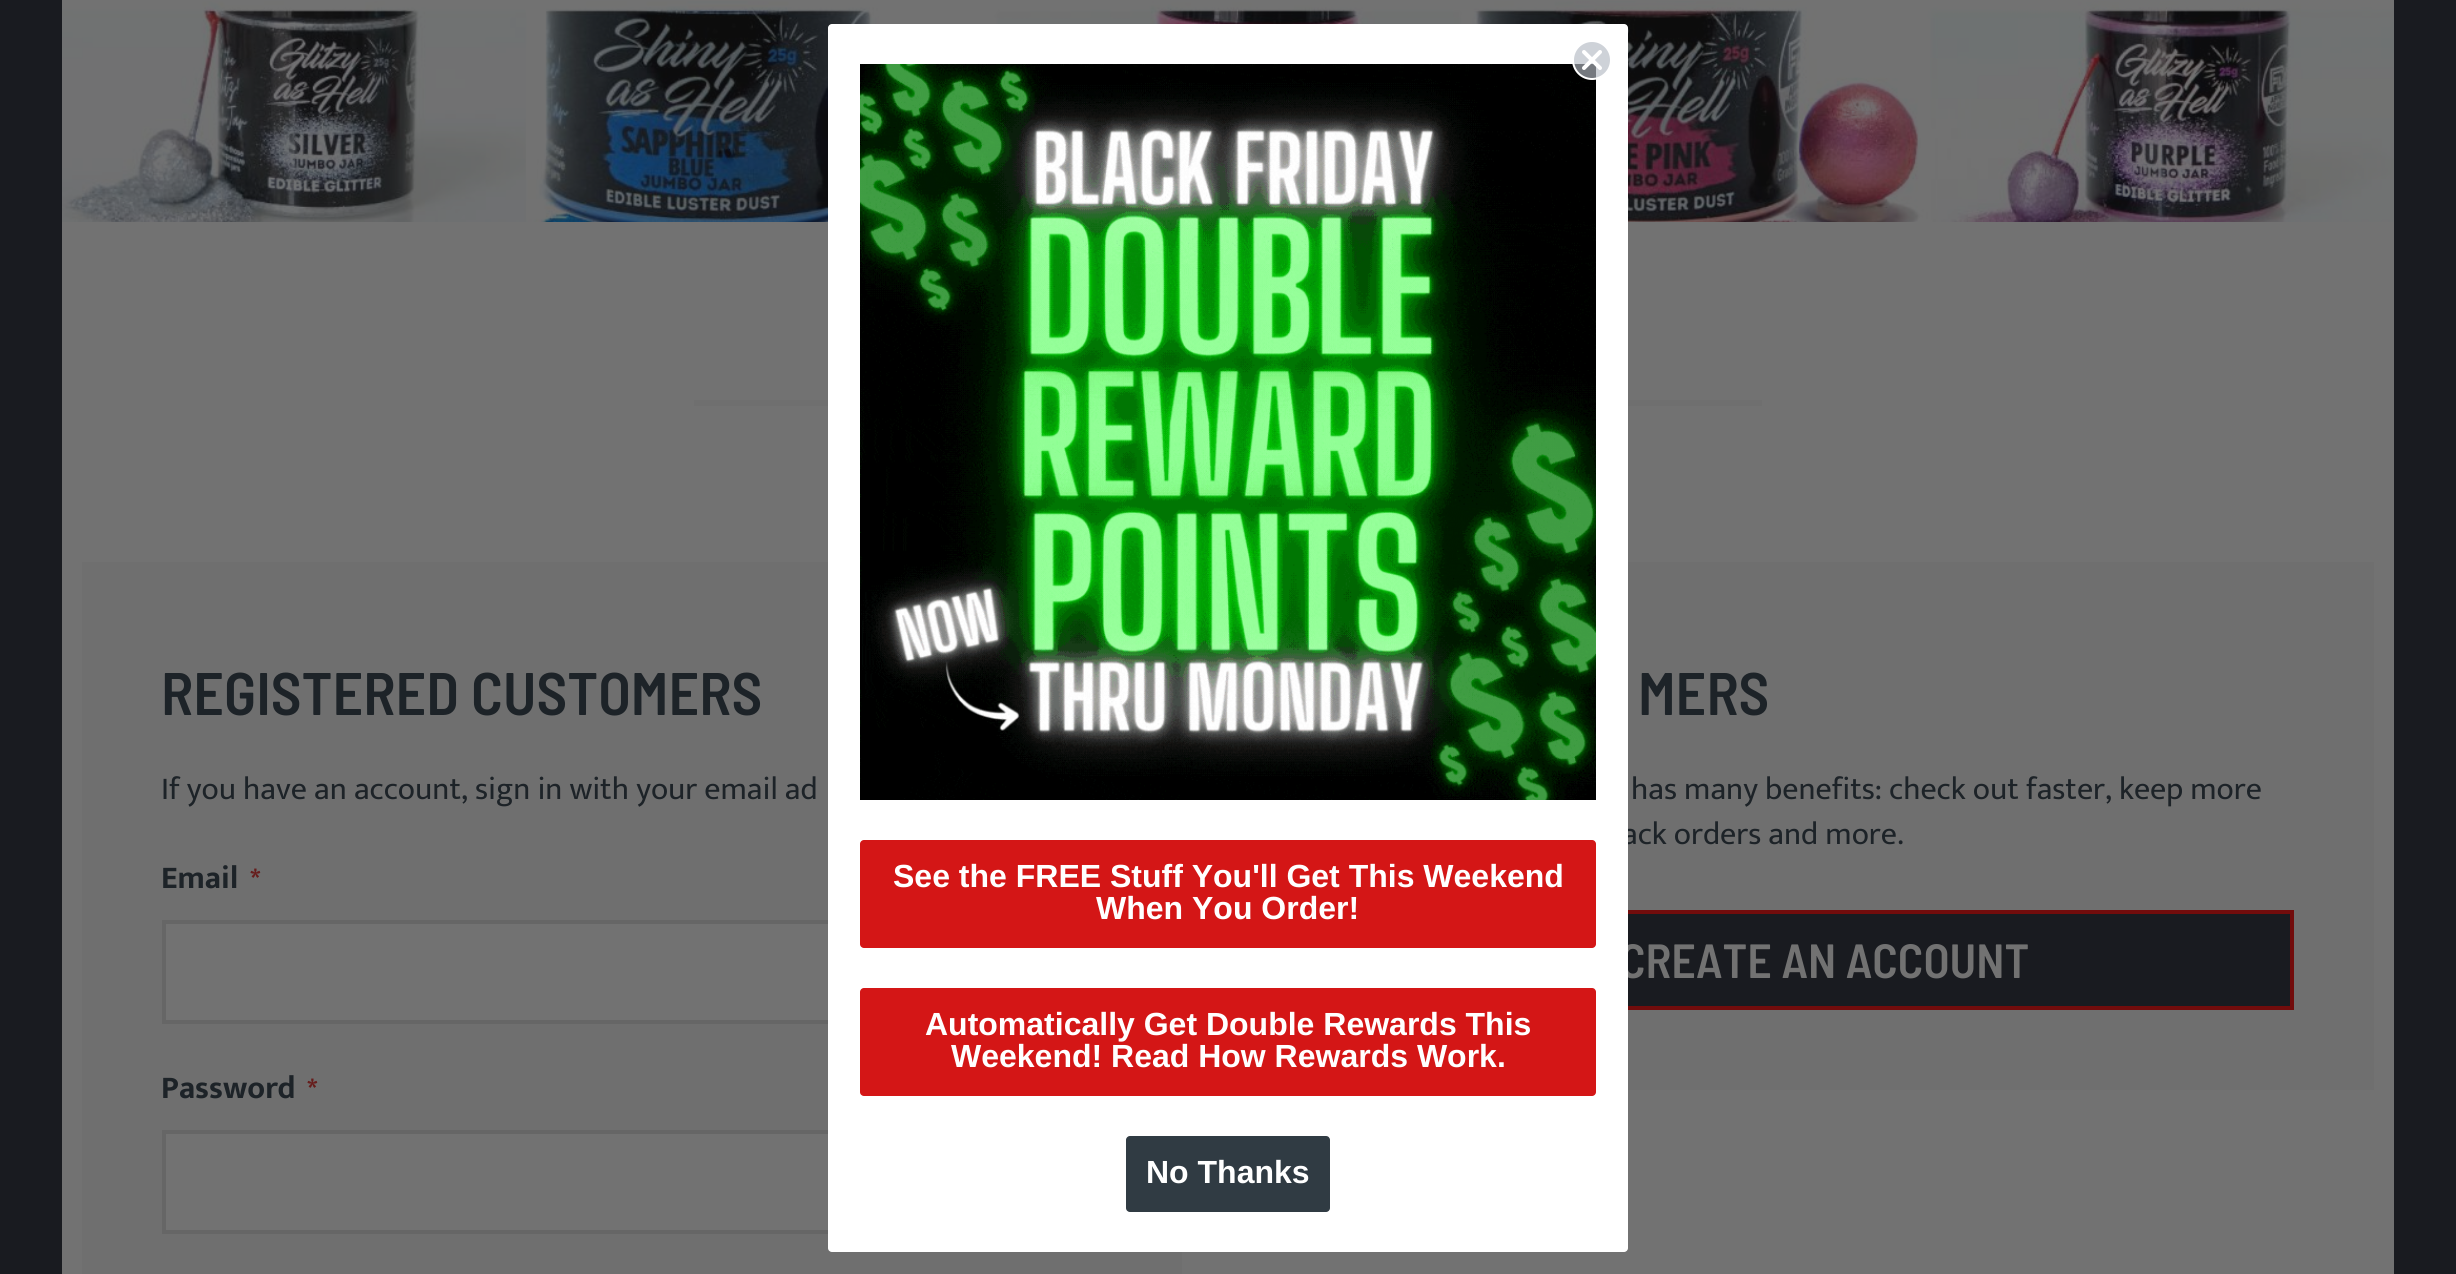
import math
import cairo

surface = cairo.ImageSurface(cairo.FORMAT_RGB24, 2456, 1274)
ctx = cairo.Context(surface)
options = cairo.FontOptions()
options.set_hint_metrics(cairo.HINT_METRICS_OFF)
options.set_hint_style(cairo.HINT_STYLE_NONE)
ctx.set_font_options(options)
ctx.set_miter_limit(4)


def set_color(code):
    ctx.set_source_rgb(*(v / 255 for v in bytes.fromhex(code[-6:])))


def draw_text(x, y, s, family, size, color, bold=False, italic=False):
    ctx.select_font_face(family, cairo.FONT_SLANT_ITALIC if italic else cairo.FONT_SLANT_NORMAL, cairo.FONT_WEIGHT_BOLD if bold else cairo.FONT_WEIGHT_NORMAL)
    ctx.set_font_size(size)
    set_color(color)
    ctx.move_to(x, y)
    ctx.show_text(s)


def fill_rect(x, y, w, h, color):
    set_color(color)
    ctx.rectangle(x, y, w, h)
    ctx.fill()


def rounded_rect(x, y, w, h, r):
    ctx.new_sub_path()
    for i, (u, v) in enumerate([(x + w - r, y + h - r), (x + r, y + h - r), (x + r, y + r), (x + w - r, y + r)]):
        ctx.arc(u, v, r, i * math.pi / 2, (i + 1) * math.pi / 2)
    ctx.close_path()


def draw_image(path, x, y, w, h):
    ctx.save()
    ctx.set_source_surface(cairo.ImageSurface.create_from_png(path), x, y)
    ctx.rectangle(x, y, w, h)
    ctx.fill()
    ctx.restore()


set_color("#191b20")
ctx.paint()
fill_rect(62, 0, 2332, 1274, "#727272")
draw_image("assets/img1.png", 62, 1, 2332, 221)
fill_rect(694, 400, 134, 6, "#6f6f6f")
fill_rect(1628, 400, 134, 6, "#6f6f6f")
fill_rect(82, 562, 1100, 712, "#6f6f6f")
draw_text(161, 715, "REGISTERED CUSTOMERS", "Barlow Semi Condensed SemiBold", 60, "#1d2328")
draw_text(161, 799, "If you have an account, sign in with your email ad", "Mukta", 32, "#1d2328")
draw_text(161, 888, "Email", "Mukta", 32, "#1d2328", bold=True)
draw_text(250, 888, "*", "Mukta", 28, "#661d1c", bold=True)
fill_rect(166, 924, 662, 96, "#727272")
ctx.rectangle(164, 922, 936, 100)
set_color("#666666")
ctx.set_line_width(4)
ctx.stroke()
draw_text(161, 1098, "Password", "Mukta", 32, "#1d2328", bold=True)
draw_text(307, 1098, "*", "Mukta", 28, "#661d1c", bold=True)
fill_rect(166, 1134, 662, 96, "#727272")
ctx.rectangle(164, 1132, 936, 100)
set_color("#666666")
ctx.stroke()
fill_rect(1628, 562, 746, 528, "#6f6f6f")
draw_text(1638, 715, "MERS", "Barlow Semi Condensed SemiBold", 60, "#1d2328")
draw_text(1631, 799, "has many benefits: check out faster, keep more", "Mukta", 32, "#1d2328")
draw_text(1622, 844, "ack orders and more.", "Mukta", 32, "#1d2328")
fill_rect(1628, 914, 662, 92, "#191b20")
ctx.rectangle(1356, 912, 936, 96)
set_color("#720c0c")
ctx.stroke()
draw_text(1620, 978, "CREATE AN ACCOUNT", "Barlow Semi Condensed SemiBold", 48, "#727272")
set_color("#ffffff")
rounded_rect(828, 24, 800, 1228, 4)
ctx.fill()
draw_image("assets/img2.png", 860, 64, 736, 736)
ctx.set_source_rgba(0.706, 0.733, 0.765, 0.65)
ctx.arc(1592, 60, 19, 0, 2 * math.pi)
ctx.fill_preserve()
set_color("#ffffff")
ctx.set_line_width(2)
ctx.stroke()
ctx.new_path()
ctx.move_to(1584, 52)
ctx.line_to(1600, 68)
ctx.move_to(1584, 68)
ctx.line_to(1600, 52)
ctx.close_path()
ctx.set_line_width(4)
ctx.set_line_cap(cairo.LINE_CAP_ROUND)
ctx.set_line_join(cairo.LINE_JOIN_ROUND)
ctx.stroke()
set_color("#d41616")
rounded_rect(860, 840, 736, 108, 4)
ctx.fill()
draw_text(893, 887, "See the FREE Stuff You'll Get This Weekend", "Liberation Sans", 32, "#ffffff", bold=True)
draw_text(1096, 919, "When You Order!", "Liberation Sans", 32, "#ffffff", bold=True)
set_color("#d41616")
rounded_rect(860, 988, 736, 108, 4)
ctx.fill()
draw_text(925, 1035, "Automatically Get Double Rewards This", "Liberation Sans", 32, "#ffffff", bold=True)
draw_text(951, 1067, "Weekend! Read How Rewards Work.", "Liberation Sans", 32, "#ffffff", bold=True)
set_color("#303b43")
rounded_rect(1126, 1136, 204, 76, 4)
ctx.fill()
draw_text(1146, 1183, "No Thanks", "Liberation Sans", 32, "#ffffff", bold=True)
surface.write_to_png("output.png")
